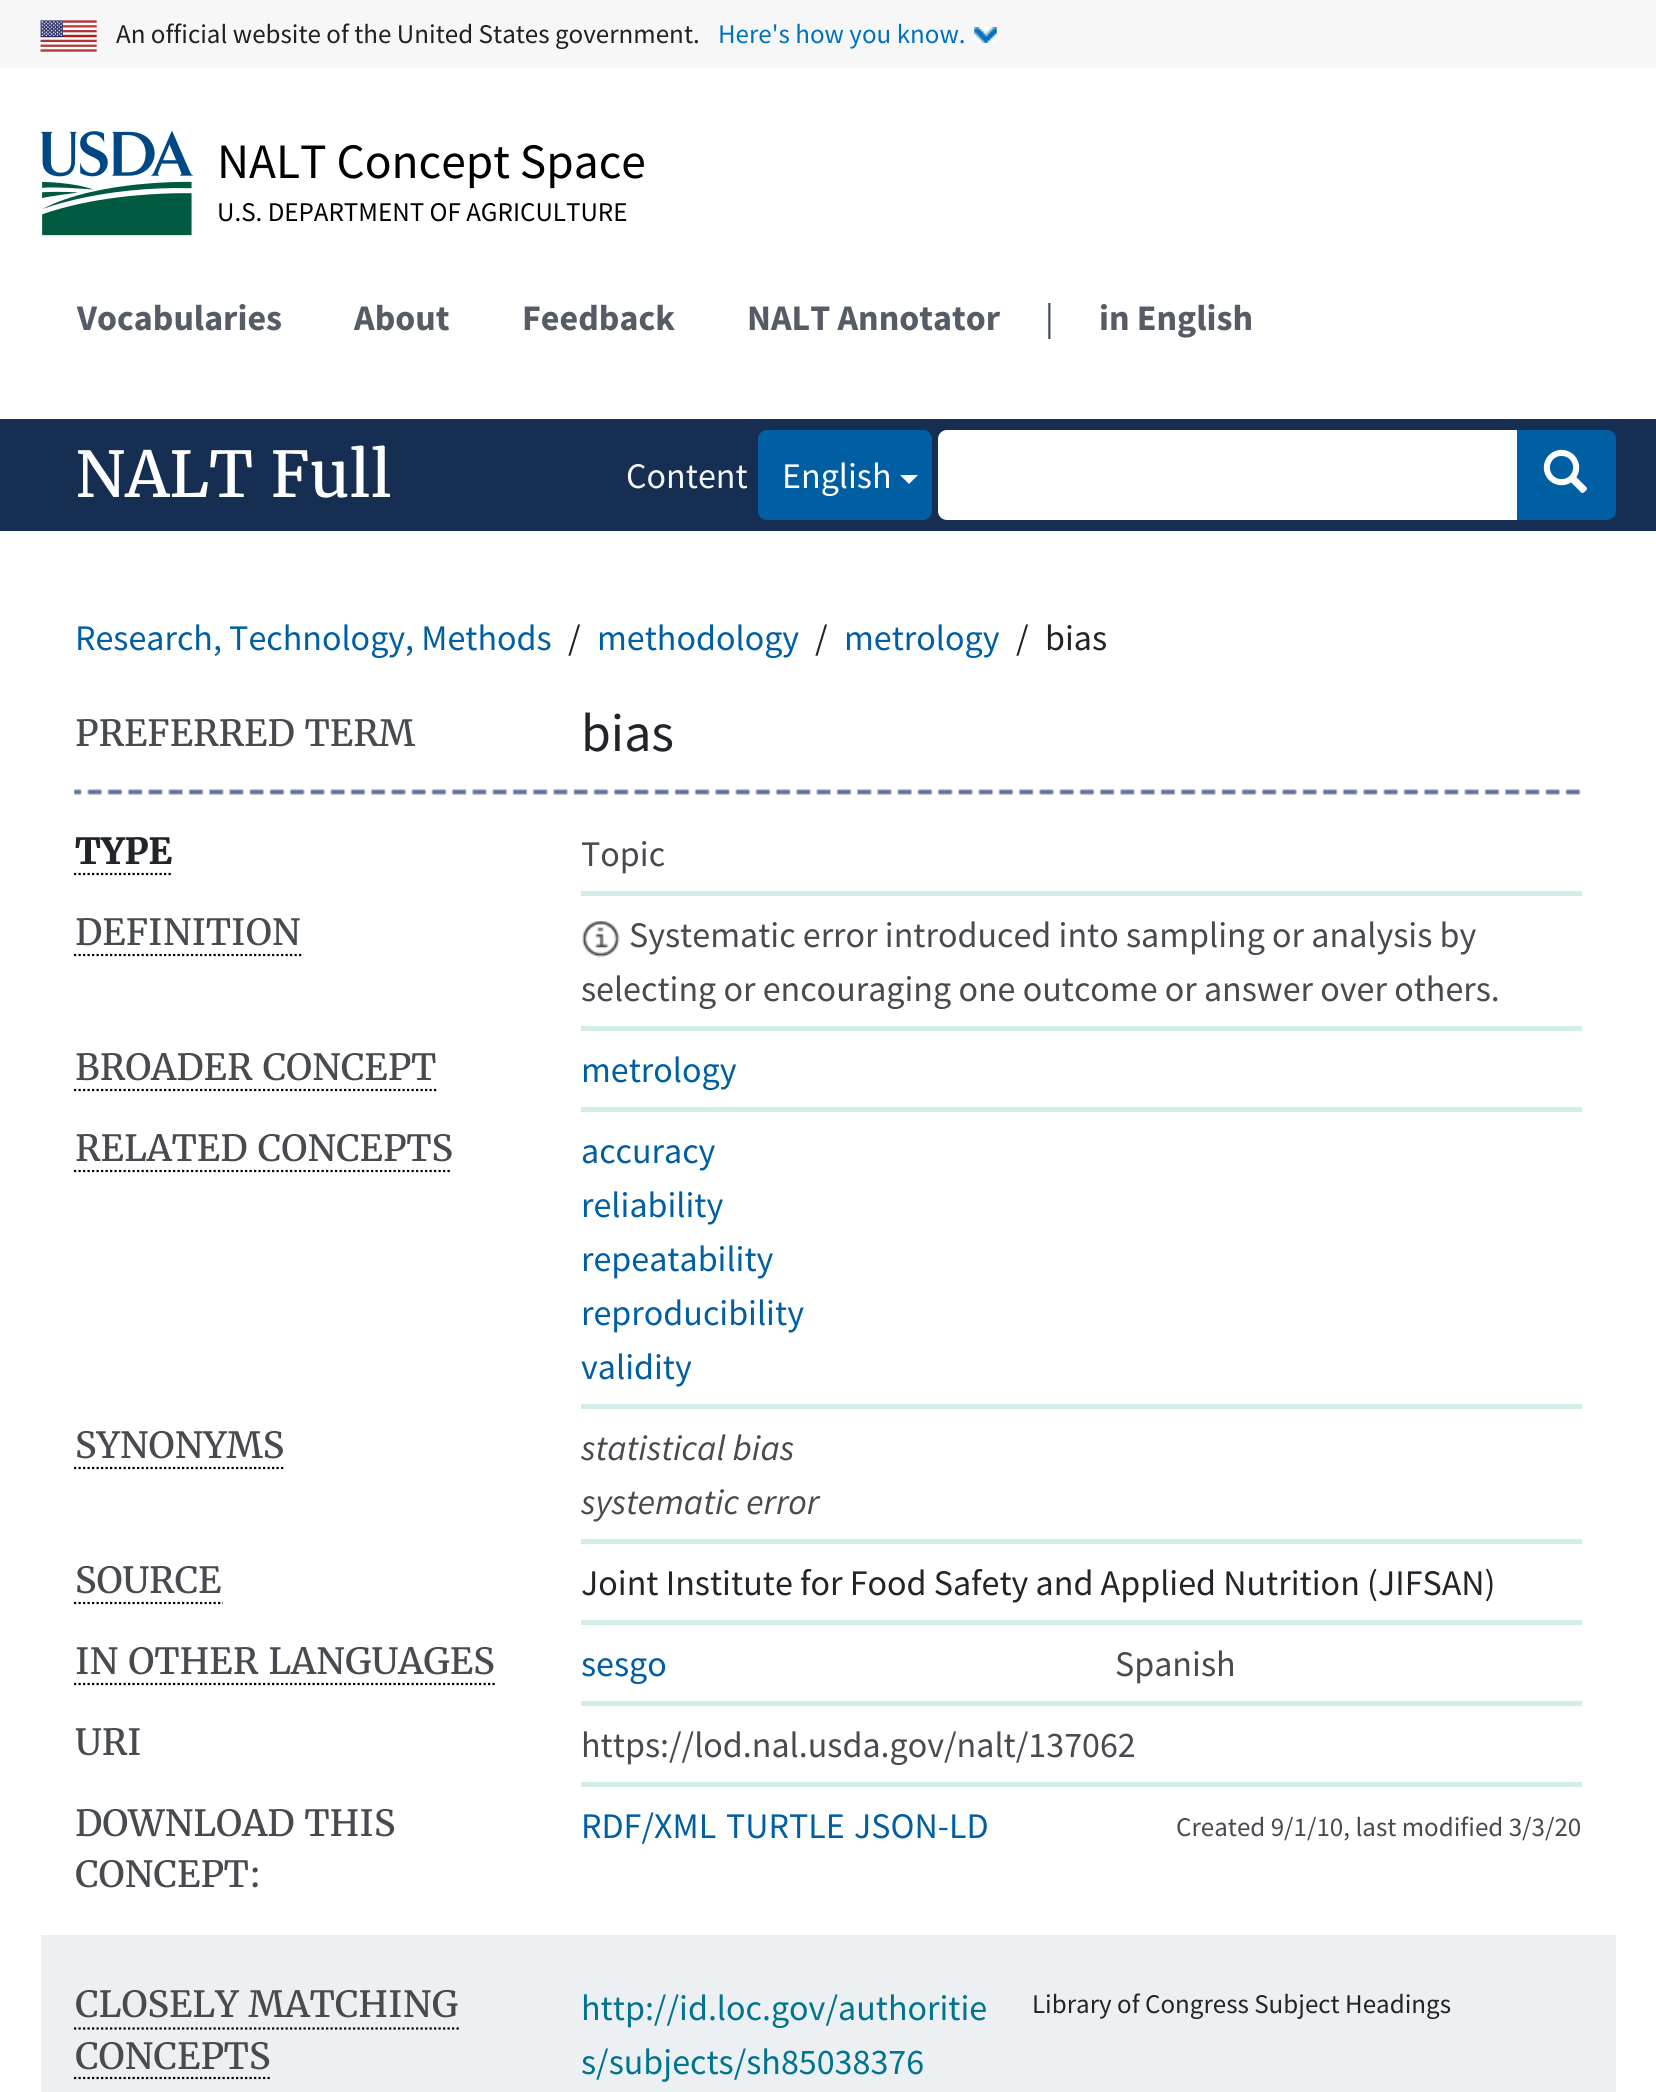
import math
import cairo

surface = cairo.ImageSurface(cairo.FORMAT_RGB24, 1656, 2092)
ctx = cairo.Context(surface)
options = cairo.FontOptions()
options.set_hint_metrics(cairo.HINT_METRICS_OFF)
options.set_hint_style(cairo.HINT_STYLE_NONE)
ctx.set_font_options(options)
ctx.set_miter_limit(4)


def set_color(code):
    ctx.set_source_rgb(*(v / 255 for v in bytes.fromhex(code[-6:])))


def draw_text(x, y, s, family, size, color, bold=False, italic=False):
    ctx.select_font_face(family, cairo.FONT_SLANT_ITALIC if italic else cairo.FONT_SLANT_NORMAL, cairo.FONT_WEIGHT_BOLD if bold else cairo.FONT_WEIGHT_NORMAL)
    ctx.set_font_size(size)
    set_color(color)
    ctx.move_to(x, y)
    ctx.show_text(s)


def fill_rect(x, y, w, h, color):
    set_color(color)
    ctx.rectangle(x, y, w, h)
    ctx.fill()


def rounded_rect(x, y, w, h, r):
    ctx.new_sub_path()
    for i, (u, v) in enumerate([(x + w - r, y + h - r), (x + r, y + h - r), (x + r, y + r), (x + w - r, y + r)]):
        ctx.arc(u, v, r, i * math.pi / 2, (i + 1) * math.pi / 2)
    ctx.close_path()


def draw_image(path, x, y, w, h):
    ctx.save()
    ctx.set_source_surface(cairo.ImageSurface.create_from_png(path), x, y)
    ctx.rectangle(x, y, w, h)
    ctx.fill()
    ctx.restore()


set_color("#ffffff")
ctx.paint()
fill_rect(0, 0, 1656, 68, "#f7f7f7")
draw_image("assets/img1.png", 40, 20, 57, 32)
draw_text(116, 43, "An official website of the United States government.", "Source Sans Pro", 27, "#212121")
draw_image("assets/img2.png", 974, 27, 23, 16)
draw_text(718, 43, "Here's how you know.", "Source Sans Pro", 27, "#0071bc")
draw_image("assets/img3.png", 41, 131, 153, 105)
draw_text(217, 178, "NALT Concept Space", "Source Sans Pro", 49.5, "#000000")
draw_text(217, 221, "U.S. DEPARTMENT OF AGRICULTURE", "Source Sans Pro", 27, "#000000")
draw_text(77, 330, "Vocabularies", "Source Sans Pro", 36, "#565c65", bold=True)
draw_text(354, 330, "About", "Source Sans Pro", 36, "#565c65", bold=True)
draw_text(522, 330, "Feedback", "Source Sans Pro", 36, "#565c65", bold=True)
draw_text(747, 330, "NALT Annotator", "Source Sans Pro", 36, "#565c65", bold=True)
draw_text(1045, 330, "|", "Source Sans Pro", 36, "#394554")
draw_text(1099, 330, "in English", "Source Sans Pro", 36, "#565c65", bold=True)
fill_rect(0, 419, 1656, 112, "#162e51")
draw_text(75, 497, "NALT Full", "Merriweather", 63, "#ffffff")
draw_text(626, 488, "Content", "Source Sans Pro", 36, "#f3f5f6")
set_color("#005ea2")
rounded_rect(758, 430, 174, 90, 9)
ctx.fill()
draw_text(782, 488, "English", "Source Sans Pro", 36, "#ffffff")
ctx.new_path()
ctx.move_to(900, 475)
ctx.line_to(918, 475)
ctx.line_to(909, 484)
ctx.close_path()
ctx.fill()
ctx.new_path()
ctx.move_to(947, 430)
ctx.line_to(1519, 430)
ctx.line_to(1519, 520)
ctx.line_to(947, 520)
ctx.curve_to(942, 520, 938, 516, 938, 511)
ctx.line_to(938, 439)
ctx.curve_to(938, 434, 942, 430, 947, 430)
ctx.close_path()
ctx.fill()
set_color("#005ea2")
ctx.new_path()
ctx.move_to(1517, 430)
ctx.line_to(1607, 430)
ctx.curve_to(1612, 430, 1616, 434, 1616, 439)
ctx.line_to(1616, 511)
ctx.curve_to(1616, 516, 1612, 520, 1607, 520)
ctx.line_to(1517, 520)
ctx.close_path()
ctx.fill()
draw_image("assets/img4.png", 1543, 449, 45, 44)
draw_text(75, 650, "Research, Technology, Methods", "Source Sans Pro", 36, "#005ea2")
draw_text(568, 650, "/", "Source Sans Pro", 36, "#212529")
draw_text(597, 650, "methodology", "Source Sans Pro", 36, "#005ea2")
draw_text(815, 650, "/", "Source Sans Pro", 36, "#212529")
draw_text(844, 650, "metrology", "Source Sans Pro", 36, "#005ea2")
draw_text(1016, 650, "/", "Source Sans Pro", 36, "#212529")
draw_text(1045, 650, "bias", "Source Sans Pro", 36, "#212529")
draw_text(75, 746, "PREFERRED TERM", "Merriweather", 36, "#474b4f")
draw_text(581, 751, "bias", "Source Sans Pro", 54, "#212529")
draw_image("assets/img5.png", 74, 789, 1507, 6)
draw_text(75, 864, "TYPE", "Merriweather", 36, "#212529", bold=True)
ctx.new_path()
ctx.move_to(74, 874)
ctx.line_to(173, 874)
set_color("#000000")
ctx.set_line_width(2.2)
ctx.set_dash([2.25, 2.25])
ctx.stroke()
fill_rect(581, 891, 1001, 5, "#d4edeb")
draw_text(581, 866, "Topic", "Source Sans Pro", 36, "#474b4f")
draw_text(75, 945, "DEFINITION", "Merriweather", 36, "#474b4f")
ctx.new_path()
ctx.move_to(74, 955)
ctx.line_to(301.5, 955)
set_color("#000000")
ctx.stroke()
fill_rect(581, 1026, 1001, 5, "#d4edeb")
draw_image("assets/img6.png", 582, 921, 38, 37)
draw_text(629, 947, "Systematic error introduced into sampling or analysis by", "Source Sans Pro", 36, "#474b4f")
draw_text(581, 1001, "selecting or encouraging one outcome or answer over others.", "Source Sans Pro", 36, "#474b4f")
draw_text(75, 1080, "BROADER CONCEPT", "Merriweather", 36, "#474b4f")
ctx.new_path()
ctx.move_to(74, 1090)
ctx.line_to(436.5, 1090)
set_color("#000000")
ctx.stroke()
fill_rect(581, 1107, 1001, 5, "#d4edeb")
draw_text(581, 1082, "metrology", "Source Sans Pro", 36, "#005ea2")
draw_text(75, 1161, "RELATED CONCEPTS", "Merriweather", 36, "#474b4f")
ctx.new_path()
ctx.move_to(74, 1171)
ctx.line_to(452, 1171)
set_color("#000000")
ctx.stroke()
fill_rect(581, 1404, 1001, 5, "#d4edeb")
draw_text(581, 1163, "accuracy", "Source Sans Pro", 36, "#005ea2")
draw_text(581, 1217, "reliability", "Source Sans Pro", 36, "#005ea2")
draw_text(581, 1271, "repeatability", "Source Sans Pro", 36, "#005ea2")
draw_text(581, 1325, "reproducibility", "Source Sans Pro", 36, "#005ea2")
draw_text(581, 1379, "validity", "Source Sans Pro", 36, "#005ea2")
draw_text(75, 1458, "SYNONYMS", "Merriweather", 36, "#474b4f")
ctx.new_path()
ctx.move_to(74, 1468)
ctx.line_to(283.5, 1468)
set_color("#000000")
ctx.stroke()
fill_rect(581, 1539, 1001, 5, "#d4edeb")
draw_text(581, 1460, "statistical bias", "Source Sans Pro", 36, "#474b4f", italic=True)
draw_text(581, 1514, "systematic error", "Source Sans Pro", 36, "#474b4f", italic=True)
draw_text(75, 1593, "SOURCE", "Merriweather", 36, "#474b4f")
ctx.new_path()
ctx.move_to(74, 1603)
ctx.line_to(223, 1603)
set_color("#000000")
ctx.stroke()
fill_rect(581, 1620, 1001, 5, "#d4edeb")
draw_text(581, 1595, "Joint Institute for Food Safety and Applied Nutrition (JIFSAN)", "Source Sans Pro", 36, "#212529")
draw_text(75, 1674, "IN OTHER LANGUAGES", "Merriweather", 36, "#474b4f")
ctx.new_path()
ctx.move_to(74, 1684)
ctx.line_to(495, 1684)
set_color("#000000")
ctx.stroke()
fill_rect(581, 1701, 1001, 5, "#d4edeb")
draw_text(581, 1676, "sesgo", "Source Sans Pro", 36, "#005ea2")
draw_text(1115, 1676, "Spanish", "Source Sans Pro", 36, "#474b4f")
draw_text(75, 1755, "URI", "Merriweather", 36, "#474b4f")
fill_rect(581, 1782, 1001, 5, "#d4edeb")
draw_text(581, 1757, "https://lod.nal.usda.gov/nalt/137062", "Source Sans Pro", 36, "#474b4f")
draw_text(75, 1836, "DOWNLOAD THIS", "Merriweather", 36, "#474b4f")
draw_text(75, 1887, "CONCEPT:", "Merriweather", 36, "#474b4f")
draw_text(581, 1838, "RDF/XML", "Source Sans Pro", 36, "#005ea2")
draw_text(726, 1838, "TURTLE", "Source Sans Pro", 36, "#005ea2")
draw_text(854, 1838, "JSON-LD", "Source Sans Pro", 36, "#005ea2")
draw_text(1176, 1836, "Created 9/1/10, last modified 3/3/20", "Source Sans Pro", 27, "#474b4f")
fill_rect(41, 1935, 1575, 157, "#edf0f2")
draw_text(75, 2017, "CLOSELY MATCHING", "Merriweather", 36, "#474b4f")
ctx.new_path()
ctx.move_to(74, 2028.5)
ctx.line_to(459, 2028.5)
set_color("#000000")
ctx.stroke()
draw_text(75, 2069, "CONCEPTS", "Merriweather", 36, "#474b4f")
ctx.new_path()
ctx.move_to(74, 2078)
ctx.line_to(270, 2078)
set_color("#000000")
ctx.stroke()
draw_text(581, 2020, "http://id.loc.gov/authoritie", "Source Sans Pro", 36, "#00748f")
draw_text(581, 2074, "s/subjects/sh85038376", "Source Sans Pro", 36, "#00748f")
draw_text(1032, 2013, "Library of Congress Subject Headings", "Source Sans Pro", 27, "#212529")
surface.write_to_png("output.png")
